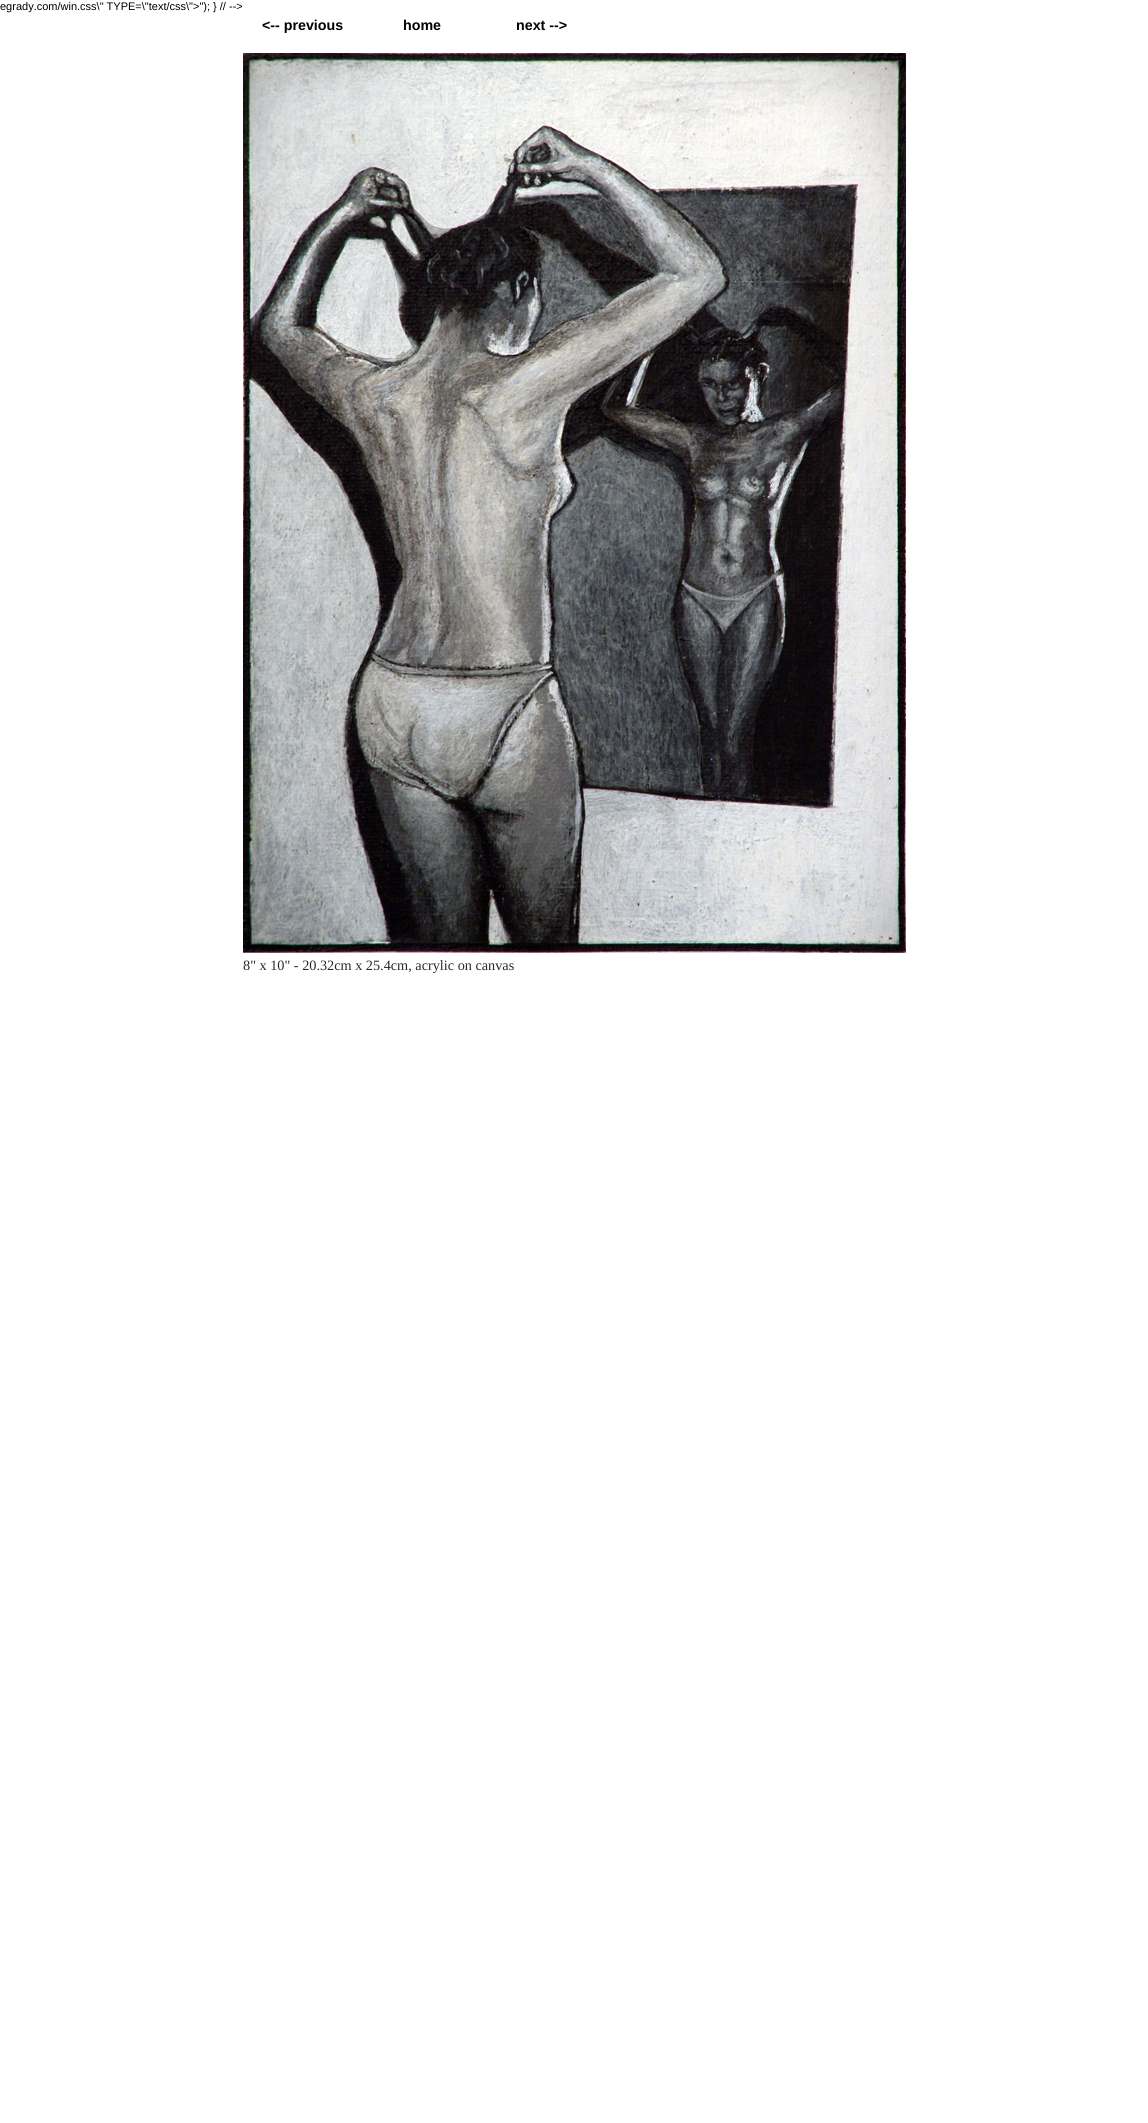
#include <cairo.h>
#include <math.h>
#include <stddef.h>

static cairo_t *ctx;

static void use_color(int r, int g, int b) {
    cairo_set_source_rgb(ctx, r / 255.0, g / 255.0, b / 255.0);
}

static void picture(const char *path, double x, double y, double w, double h) {
    cairo_surface_t *image = cairo_image_surface_create_from_png(path);
    cairo_save(ctx);
    cairo_set_source_surface(ctx, image, x, y);
    cairo_rectangle(ctx, x, y, w, h);
    cairo_fill(ctx);
    cairo_restore(ctx);
    cairo_surface_destroy(image);
}

int main(void) {
    cairo_surface_t *surface = cairo_image_surface_create(CAIRO_FORMAT_RGB24, 1148, 2123);
    ctx = cairo_create(surface);
    cairo_font_options_t *options = cairo_font_options_create();
    cairo_font_options_set_hint_metrics(options, CAIRO_HINT_METRICS_OFF);
    cairo_font_options_set_hint_style(options, CAIRO_HINT_STYLE_NONE);
    cairo_set_font_options(ctx, options);
    cairo_set_miter_limit(ctx, 4);
    use_color(255, 255, 255);
    cairo_paint(ctx);
    cairo_select_font_face(ctx, "Liberation Sans", CAIRO_FONT_SLANT_NORMAL, CAIRO_FONT_WEIGHT_NORMAL);
    cairo_set_font_size(ctx, 11);
    use_color(0, 0, 0);
    cairo_move_to(ctx, 0, 10);
    cairo_show_text(ctx, "egrady.com/win.css\\\" TYPE=\\\"text/css\\\">\"); } // -->");
    cairo_select_font_face(ctx, "Liberation Sans", CAIRO_FONT_SLANT_NORMAL, CAIRO_FONT_WEIGHT_BOLD);
    cairo_set_font_size(ctx, 14.25);
    cairo_move_to(ctx, 262, 30);
    cairo_show_text(ctx, "<-- previous");
    cairo_move_to(ctx, 403, 30);
    cairo_show_text(ctx, "home");
    cairo_move_to(ctx, 516, 30);
    cairo_show_text(ctx, "next -->");
    picture("img1.png", 243, 53, 663, 900);
    cairo_select_font_face(ctx, "Liberation Serif", CAIRO_FONT_SLANT_NORMAL, CAIRO_FONT_WEIGHT_NORMAL);
    use_color(41, 41, 41);
    cairo_move_to(ctx, 243, 970);
    cairo_show_text(ctx, "8\" x 10\" - 20.32cm x 25.4cm, acrylic on canvas");
    cairo_surface_write_to_png(surface, "result.png");
    cairo_font_options_destroy(options);
    cairo_destroy(ctx);
    cairo_surface_destroy(surface);
    return 0;
}
